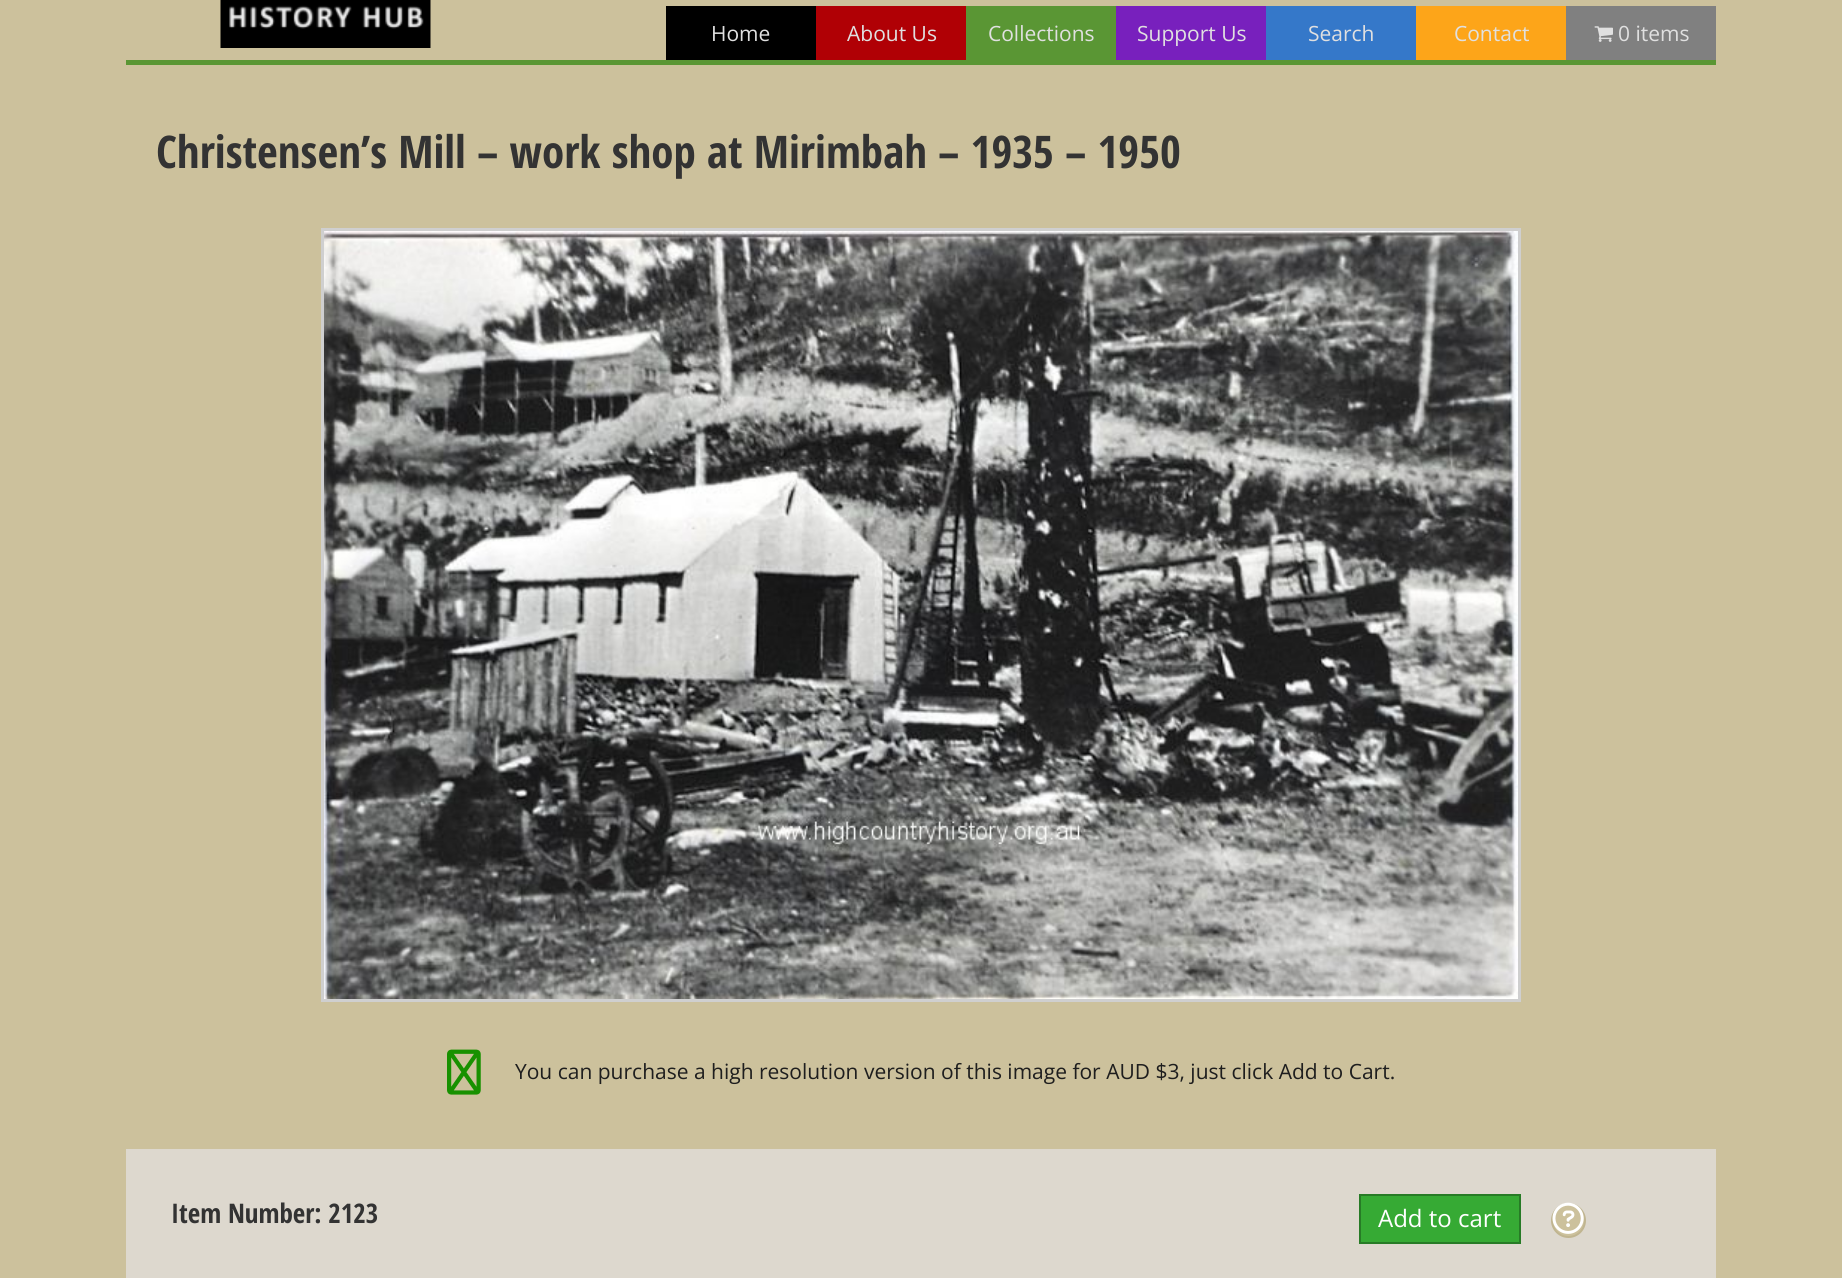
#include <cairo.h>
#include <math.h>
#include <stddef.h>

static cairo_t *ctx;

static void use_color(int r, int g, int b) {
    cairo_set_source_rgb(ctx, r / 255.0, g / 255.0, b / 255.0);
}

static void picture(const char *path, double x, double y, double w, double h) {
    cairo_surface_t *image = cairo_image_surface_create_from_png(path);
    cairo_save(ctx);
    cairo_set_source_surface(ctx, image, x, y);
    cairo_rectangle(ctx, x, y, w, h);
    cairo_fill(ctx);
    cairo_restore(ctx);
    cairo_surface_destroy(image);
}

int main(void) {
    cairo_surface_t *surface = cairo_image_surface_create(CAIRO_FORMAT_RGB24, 1842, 1278);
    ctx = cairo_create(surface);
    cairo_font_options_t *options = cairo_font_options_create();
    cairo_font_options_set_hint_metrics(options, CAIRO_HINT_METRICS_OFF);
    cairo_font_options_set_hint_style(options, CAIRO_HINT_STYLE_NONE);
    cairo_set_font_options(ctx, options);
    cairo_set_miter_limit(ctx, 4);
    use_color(204, 193, 156);
    cairo_paint(ctx);
    picture("img1.png", 220, 0, 211, 48);
    use_color(0, 0, 0);
    cairo_rectangle(ctx, 666, 6, 150, 54);
    cairo_fill(ctx);
    cairo_select_font_face(ctx, "Open Sans", CAIRO_FONT_SLANT_NORMAL, CAIRO_FONT_WEIGHT_NORMAL);
    cairo_set_font_size(ctx, 21);
    use_color(224, 224, 224);
    cairo_move_to(ctx, 711, 41);
    cairo_show_text(ctx, "Home");
    use_color(176, 0, 5);
    cairo_rectangle(ctx, 816, 6, 150, 54);
    cairo_fill(ctx);
    use_color(224, 224, 224);
    cairo_move_to(ctx, 847, 41);
    cairo_show_text(ctx, "About Us");
    use_color(90, 150, 52);
    cairo_rectangle(ctx, 966, 6, 150, 54);
    cairo_fill(ctx);
    use_color(224, 224, 224);
    cairo_move_to(ctx, 988, 41);
    cairo_show_text(ctx, "Collections");
    use_color(120, 32, 189);
    cairo_rectangle(ctx, 1116, 6, 150, 54);
    cairo_fill(ctx);
    use_color(224, 224, 224);
    cairo_move_to(ctx, 1137, 41);
    cairo_show_text(ctx, "Support Us");
    use_color(53, 120, 201);
    cairo_rectangle(ctx, 1266, 6, 150, 54);
    cairo_fill(ctx);
    use_color(224, 224, 224);
    cairo_move_to(ctx, 1308, 41);
    cairo_show_text(ctx, "Search");
    use_color(253, 165, 25);
    cairo_rectangle(ctx, 1416, 6, 150, 54);
    cairo_fill(ctx);
    use_color(224, 224, 224);
    cairo_move_to(ctx, 1454, 41);
    cairo_show_text(ctx, "Contact");
    use_color(128, 128, 128);
    cairo_rectangle(ctx, 1566, 6, 150, 54);
    cairo_fill(ctx);
    picture("img2.png", 1594, 26, 19, 16);
    use_color(224, 224, 224);
    cairo_move_to(ctx, 1618, 41);
    cairo_show_text(ctx, "0 items");
    use_color(90, 150, 52);
    cairo_rectangle(ctx, 126, 60, 1590, 5);
    cairo_fill(ctx);
    cairo_select_font_face(ctx, "Open Sans Condensed", CAIRO_FONT_SLANT_NORMAL, CAIRO_FONT_WEIGHT_BOLD);
    cairo_set_font_size(ctx, 45);
    use_color(51, 51, 51);
    cairo_move_to(ctx, 156, 168);
    cairo_show_text(ctx, "Christensen’s Mill – work shop at Mirimbah – 1935 – 1950");
    cairo_rectangle(ctx, 322.5, 229.5, 1197, 771);
    use_color(207, 207, 207);
    cairo_set_line_width(ctx, 3);
    cairo_stroke(ctx);
    picture("img3.png", 324, 231, 1194, 768);
    picture("img4.png", 447, 1049, 34, 46);
    cairo_select_font_face(ctx, "Open Sans", CAIRO_FONT_SLANT_NORMAL, CAIRO_FONT_WEIGHT_NORMAL);
    cairo_set_font_size(ctx, 21);
    use_color(30, 30, 30);
    cairo_move_to(ctx, 515, 1079);
    cairo_show_text(ctx, "You can purchase a high resolution version of this image for AUD $3, just click Add to Cart.");
    use_color(221, 216, 206);
    cairo_rectangle(ctx, 126, 1149, 1590, 129);
    cairo_fill(ctx);
    cairo_select_font_face(ctx, "Open Sans Condensed", CAIRO_FONT_SLANT_NORMAL, CAIRO_FONT_WEIGHT_BOLD);
    cairo_set_font_size(ctx, 27);
    use_color(51, 51, 51);
    cairo_move_to(ctx, 171, 1223);
    cairo_show_text(ctx, "Item Number: 2123");
    use_color(54, 170, 52);
    cairo_rectangle(ctx, 1360, 1195, 160, 48);
    cairo_fill_preserve(ctx);
    use_color(39, 123, 38);
    cairo_set_line_width(ctx, 2);
    cairo_stroke(ctx);
    cairo_select_font_face(ctx, "Open Sans", CAIRO_FONT_SLANT_NORMAL, CAIRO_FONT_WEIGHT_NORMAL);
    cairo_set_font_size(ctx, 24);
    use_color(255, 255, 255);
    cairo_move_to(ctx, 1378, 1227);
    cairo_show_text(ctx, "Add to cart");
    use_color(204, 193, 156);
    cairo_new_path(ctx);
    cairo_arc(ctx, 1568.5, 1220.5, 16.5, 0, 2 * M_PI);
    cairo_fill_preserve(ctx);
    use_color(192, 181, 144);
    cairo_stroke(ctx);
    picture("img5.png", 1552, 1202, 32, 32);
    cairo_surface_write_to_png(surface, "result.png");
    cairo_font_options_destroy(options);
    cairo_destroy(ctx);
    cairo_surface_destroy(surface);
    return 0;
}
